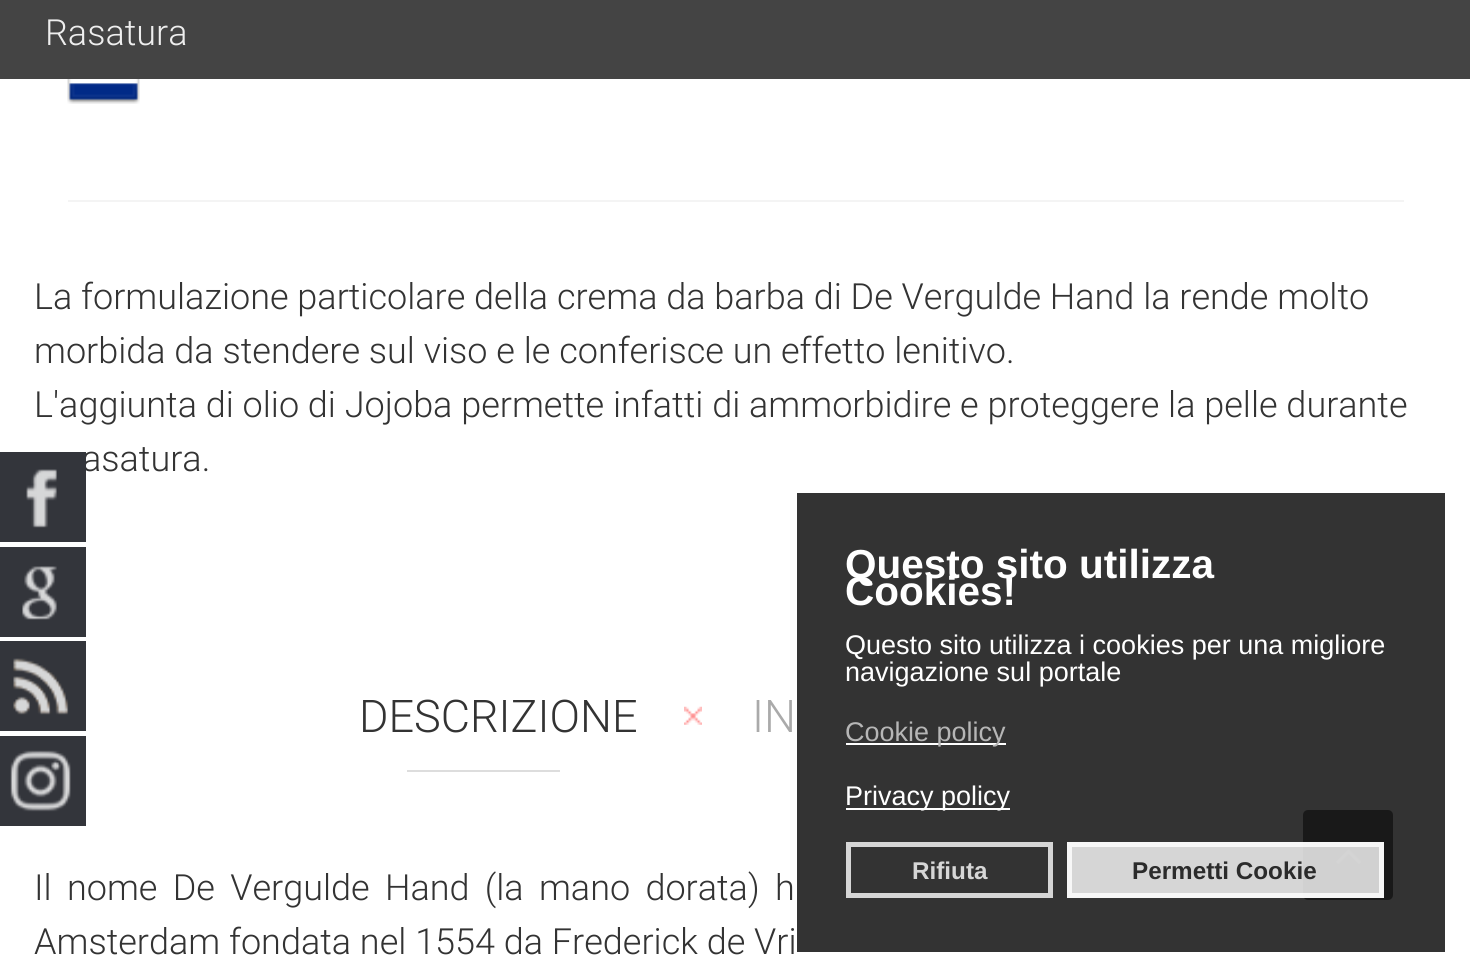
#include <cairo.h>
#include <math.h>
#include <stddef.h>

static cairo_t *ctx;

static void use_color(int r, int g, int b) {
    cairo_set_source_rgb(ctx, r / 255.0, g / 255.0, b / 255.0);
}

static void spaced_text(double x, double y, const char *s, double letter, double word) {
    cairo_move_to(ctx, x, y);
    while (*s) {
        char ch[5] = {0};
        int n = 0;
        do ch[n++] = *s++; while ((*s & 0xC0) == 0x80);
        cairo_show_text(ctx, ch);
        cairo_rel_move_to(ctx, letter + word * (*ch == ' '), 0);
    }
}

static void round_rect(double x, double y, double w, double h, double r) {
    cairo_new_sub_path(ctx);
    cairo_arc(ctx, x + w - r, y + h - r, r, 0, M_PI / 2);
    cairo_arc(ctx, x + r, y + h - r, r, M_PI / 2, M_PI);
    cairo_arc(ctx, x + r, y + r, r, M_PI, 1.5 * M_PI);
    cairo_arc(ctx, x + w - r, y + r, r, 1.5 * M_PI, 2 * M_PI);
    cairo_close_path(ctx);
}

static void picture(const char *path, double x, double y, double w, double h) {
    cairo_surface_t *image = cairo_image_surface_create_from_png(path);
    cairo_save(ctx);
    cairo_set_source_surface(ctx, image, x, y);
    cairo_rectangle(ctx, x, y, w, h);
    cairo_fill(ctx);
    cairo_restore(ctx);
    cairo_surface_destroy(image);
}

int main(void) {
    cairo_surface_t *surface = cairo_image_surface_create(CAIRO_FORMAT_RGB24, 1470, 977);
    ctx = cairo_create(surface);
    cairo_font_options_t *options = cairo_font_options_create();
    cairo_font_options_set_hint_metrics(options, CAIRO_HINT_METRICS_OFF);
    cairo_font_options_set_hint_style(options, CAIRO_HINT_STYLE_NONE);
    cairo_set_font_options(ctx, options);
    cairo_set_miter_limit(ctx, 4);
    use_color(255, 255, 255);
    cairo_paint(ctx);
    use_color(68, 68, 68);
    cairo_rectangle(ctx, 0, 0, 1470, 79);
    cairo_fill(ctx);
    cairo_select_font_face(ctx, "Roboto Light", CAIRO_FONT_SLANT_NORMAL, CAIRO_FONT_WEIGHT_NORMAL);
    cairo_set_font_size(ctx, 36);
    use_color(238, 238, 238);
    cairo_move_to(ctx, 45, 45);
    cairo_show_text(ctx, "Rasatura");
    use_color(244, 244, 244);
    cairo_rectangle(ctx, 68, 200, 1336, 2);
    cairo_fill(ctx);
    picture("img1.png", 67, 79, 73, 25);
    use_color(51, 51, 51);
    cairo_move_to(ctx, 34, 309);
    cairo_show_text(ctx, "La formulazione particolare della crema da barba di De Vergulde Hand la rende molto");
    cairo_move_to(ctx, 34, 363);
    cairo_show_text(ctx, "morbida da stendere sul viso e le conferisce un effetto lenitivo.");
    cairo_move_to(ctx, 34, 417);
    cairo_show_text(ctx, "L'aggiunta di olio di Jojoba permette infatti di ammorbidire e proteggere la pelle durante");
    cairo_move_to(ctx, 82, 471);
    cairo_show_text(ctx, "asatura.");
    cairo_set_font_size(ctx, 45);
    cairo_move_to(ctx, 359, 732);
    cairo_show_text(ctx, "DESCRIZIONE");
    use_color(221, 221, 221);
    cairo_rectangle(ctx, 407, 770, 153, 2);
    cairo_fill(ctx);
    picture("img2.png", 684, 706, 18, 19);
    use_color(170, 170, 170);
    cairo_move_to(ctx, 752, 732);
    cairo_show_text(ctx, "IN");
    cairo_set_font_size(ctx, 36);
    use_color(51, 51, 51);
    spaced_text(34, 900, "Il nome De Vergulde Hand (la mano dorata) h", 0, 6.5);
    cairo_move_to(ctx, 34, 954);
    cairo_show_text(ctx, "Amsterdam fondata nel 1554 da Frederick de Vri");
    cairo_set_source_rgba(ctx, 0, 0, 0, 0.5);
    round_rect(1303, 810, 90, 90, 5);
    cairo_fill(ctx);
    picture("img3.png", 1336, 849, 26, 15);
    use_color(51, 53, 59);
    cairo_rectangle(ctx, 0, 452, 86, 90);
    cairo_fill(ctx);
    picture("img4.png", 26, 469, 31, 59);
    cairo_rectangle(ctx, 0, 547, 86, 90);
    cairo_fill(ctx);
    picture("img5.png", 22, 566, 35, 54);
    cairo_rectangle(ctx, 0, 641, 86, 90);
    cairo_fill(ctx);
    picture("img6.png", 13, 658, 56, 57);
    cairo_rectangle(ctx, 0, 736, 86, 90);
    cairo_fill(ctx);
    picture("img7.png", 10, 750, 61, 62);
    cairo_set_source_rgba(ctx, 0, 0, 0, 0.8);
    cairo_rectangle(ctx, 797, 493, 648, 459);
    cairo_fill(ctx);
    cairo_select_font_face(ctx, "Liberation Sans", CAIRO_FONT_SLANT_NORMAL, CAIRO_FONT_WEIGHT_BOLD);
    cairo_set_font_size(ctx, 40.5);
    use_color(255, 255, 255);
    cairo_move_to(ctx, 845, 578);
    cairo_show_text(ctx, "Questo sito utilizza");
    cairo_move_to(ctx, 845, 605);
    cairo_show_text(ctx, "Cookies!");
    cairo_select_font_face(ctx, "Liberation Sans", CAIRO_FONT_SLANT_NORMAL, CAIRO_FONT_WEIGHT_NORMAL);
    cairo_set_font_size(ctx, 27);
    cairo_move_to(ctx, 845, 654);
    cairo_show_text(ctx, "Questo sito utilizza i cookies per una migliore");
    cairo_move_to(ctx, 845, 681);
    cairo_show_text(ctx, "navigazione sul portale");
    cairo_rectangle(ctx, 846, 743, 160, 2);
    cairo_fill(ctx);
    use_color(182, 182, 182);
    cairo_move_to(ctx, 845, 741);
    cairo_show_text(ctx, "Cookie policy");
    use_color(255, 255, 255);
    cairo_rectangle(ctx, 846, 808, 164, 2);
    cairo_fill(ctx);
    cairo_move_to(ctx, 845, 805);
    cairo_show_text(ctx, "Privacy policy");
    cairo_rectangle(ctx, 848.5, 844.5, 202, 51);
    cairo_set_source_rgba(ctx, 1, 1, 1, 0.8);
    cairo_set_line_width(ctx, 5);
    cairo_stroke(ctx);
    cairo_select_font_face(ctx, "Liberation Sans", CAIRO_FONT_SLANT_NORMAL, CAIRO_FONT_WEIGHT_BOLD);
    cairo_set_font_size(ctx, 24.25);
    use_color(214, 214, 214);
    cairo_move_to(ctx, 912, 879);
    cairo_show_text(ctx, "Rifiuta");
    cairo_set_source_rgba(ctx, 1, 1, 1, 0.8);
    cairo_rectangle(ctx, 1067, 842, 317, 56);
    cairo_fill(ctx);
    cairo_rectangle(ctx, 1069.5, 844.5, 312, 51);
    cairo_stroke(ctx);
    use_color(43, 43, 43);
    cairo_move_to(ctx, 1132, 879);
    cairo_show_text(ctx, "Permetti Cookie");
    cairo_surface_write_to_png(surface, "result.png");
    cairo_font_options_destroy(options);
    cairo_destroy(ctx);
    cairo_surface_destroy(surface);
    return 0;
}
